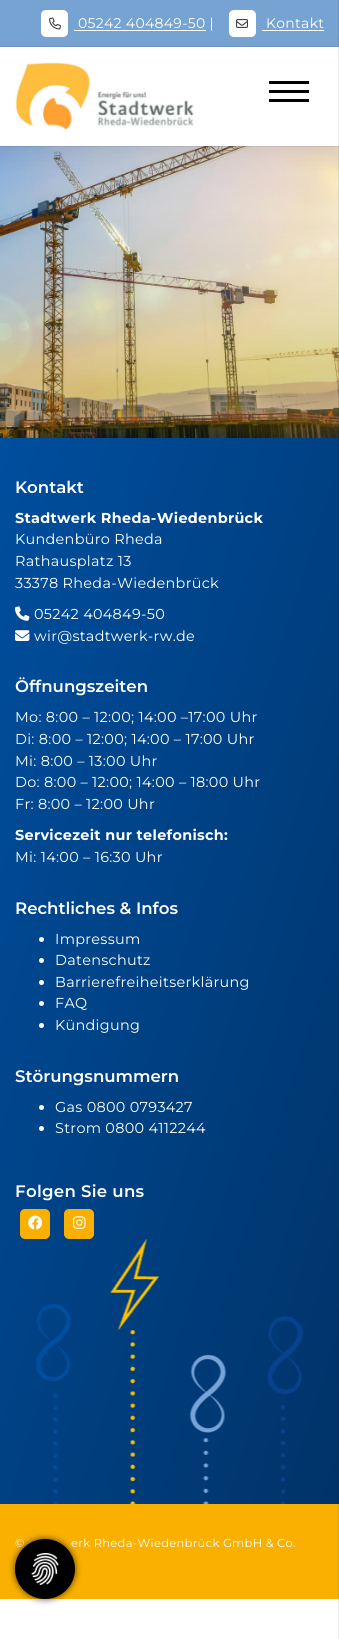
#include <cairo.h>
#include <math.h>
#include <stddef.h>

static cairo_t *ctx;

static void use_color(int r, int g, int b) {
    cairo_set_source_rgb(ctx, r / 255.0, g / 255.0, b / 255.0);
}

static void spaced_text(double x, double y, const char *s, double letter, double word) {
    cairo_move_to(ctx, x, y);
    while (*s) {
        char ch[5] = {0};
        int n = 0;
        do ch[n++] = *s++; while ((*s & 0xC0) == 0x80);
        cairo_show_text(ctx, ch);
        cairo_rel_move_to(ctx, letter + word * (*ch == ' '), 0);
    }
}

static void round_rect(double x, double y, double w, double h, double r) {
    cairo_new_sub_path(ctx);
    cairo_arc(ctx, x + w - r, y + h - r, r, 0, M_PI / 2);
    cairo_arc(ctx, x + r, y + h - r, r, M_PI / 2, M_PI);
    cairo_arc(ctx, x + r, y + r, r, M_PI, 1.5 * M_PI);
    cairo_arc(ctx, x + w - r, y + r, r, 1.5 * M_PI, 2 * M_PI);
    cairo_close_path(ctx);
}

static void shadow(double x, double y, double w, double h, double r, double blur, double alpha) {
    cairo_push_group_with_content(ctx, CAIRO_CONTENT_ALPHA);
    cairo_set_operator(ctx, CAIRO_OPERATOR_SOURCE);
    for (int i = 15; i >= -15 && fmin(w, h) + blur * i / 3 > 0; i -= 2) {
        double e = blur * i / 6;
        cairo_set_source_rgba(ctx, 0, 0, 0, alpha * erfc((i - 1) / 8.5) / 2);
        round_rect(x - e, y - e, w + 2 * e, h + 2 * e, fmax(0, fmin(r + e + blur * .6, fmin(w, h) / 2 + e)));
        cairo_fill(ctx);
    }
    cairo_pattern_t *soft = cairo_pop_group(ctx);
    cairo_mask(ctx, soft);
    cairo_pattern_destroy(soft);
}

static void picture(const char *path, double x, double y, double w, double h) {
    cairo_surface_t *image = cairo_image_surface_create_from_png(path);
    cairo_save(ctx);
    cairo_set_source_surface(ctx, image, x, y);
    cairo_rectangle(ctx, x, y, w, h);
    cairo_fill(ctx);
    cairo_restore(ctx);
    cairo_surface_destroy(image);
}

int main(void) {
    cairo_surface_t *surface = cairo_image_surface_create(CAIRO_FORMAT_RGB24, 339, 1639);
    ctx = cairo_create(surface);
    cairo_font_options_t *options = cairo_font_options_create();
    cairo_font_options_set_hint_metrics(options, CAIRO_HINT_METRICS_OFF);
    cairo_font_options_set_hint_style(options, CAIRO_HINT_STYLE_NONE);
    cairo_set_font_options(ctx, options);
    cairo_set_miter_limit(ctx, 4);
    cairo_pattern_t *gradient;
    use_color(255, 255, 255);
    cairo_paint(ctx);
    use_color(119, 163, 210);
    cairo_rectangle(ctx, 0, 0, 339, 47);
    cairo_fill(ctx);
    picture("img4.png", 0, 146, 339, 292);
    cairo_rectangle(ctx, -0.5, 46.5, 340, 100);
    cairo_set_source_rgba(ctx, 0, 0, 0, 0.08);
    cairo_set_line_width(ctx, 1);
    cairo_stroke(ctx);
    use_color(255, 255, 255);
    round_rect(41, 10, 27, 27, 5);
    cairo_fill(ctx);
    picture("img2.png", 49, 17, 12, 13);
    cairo_rectangle(ctx, 74, 30, 132, 1);
    cairo_fill(ctx);
    round_rect(229, 10, 27, 27, 5);
    cairo_fill(ctx);
    picture("img3.png", 236, 19, 12, 9);
    cairo_rectangle(ctx, 262, 30, 62, 1);
    cairo_fill(ctx);
    use_color(0, 0, 0);
    shadow(0, 53, 339, 99, 0, 12, 0.05);
    use_color(255, 255, 255);
    cairo_rectangle(ctx, 0, 47, 339, 99);
    cairo_fill(ctx);
    picture("img1.png", 15, 62, 179, 69);
    use_color(0, 0, 0);
    cairo_rectangle(ctx, 269, 90, 40, 3);
    cairo_fill(ctx);
    cairo_rectangle(ctx, 269, 81, 40, 3);
    cairo_fill(ctx);
    cairo_rectangle(ctx, 269, 99, 40, 3);
    cairo_fill(ctx);
    cairo_select_font_face(ctx, "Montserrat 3 Thin", CAIRO_FONT_SLANT_NORMAL, CAIRO_FONT_WEIGHT_NORMAL);
    cairo_set_font_size(ctx, 14);
    use_color(255, 255, 255);
    spaced_text(78, 28, "05242 404849-50 |", 0.3, 0);
    spaced_text(266, 28, "Kontakt", 0.3, 0);
    gradient = cairo_pattern_create_linear(-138, 873, 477, 1069);
    cairo_pattern_add_color_stop_rgba(gradient, 0, 0, 0.306, 0.62, 1);
    cairo_pattern_add_color_stop_rgba(gradient, 1, 0, 0.2, 0.408, 1);
    cairo_set_source(ctx, gradient);
    cairo_pattern_destroy(gradient);
    cairo_rectangle(ctx, 0, 438, 339, 1066);
    cairo_fill(ctx);
    use_color(249, 176, 0);
    cairo_rectangle(ctx, 0, 1504, 339, 95);
    cairo_fill(ctx);
    cairo_rectangle(ctx, 338.5, -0.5, 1, 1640);
    cairo_set_source_rgba(ctx, 0, 0, 0, 0.08);
    cairo_stroke(ctx);
    picture("img5.png", 35, 1239, 269, 265);
    cairo_select_font_face(ctx, "Montserrat Thin", CAIRO_FONT_SLANT_NORMAL, CAIRO_FONT_WEIGHT_NORMAL);
    cairo_set_font_size(ctx, 16.6);
    use_color(255, 255, 255);
    cairo_move_to(ctx, 15, 493);
    cairo_show_text(ctx, "Kontakt");
    cairo_select_font_face(ctx, "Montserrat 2 Thin", CAIRO_FONT_SLANT_NORMAL, CAIRO_FONT_WEIGHT_NORMAL);
    cairo_set_font_size(ctx, 14.4);
    spaced_text(15, 523, "Stadtwerk Rheda-Wiedenbrück", 0.3, 0);
    cairo_select_font_face(ctx, "Montserrat 3 Thin", CAIRO_FONT_SLANT_NORMAL, CAIRO_FONT_WEIGHT_NORMAL);
    spaced_text(15, 544, "Kundenbüro Rheda", 0.3, 0);
    spaced_text(15, 566, "Rathausplatz 13", 0.3, 0);
    spaced_text(15, 588, "33378 Rheda-Wiedenbrück", 0.3, 0);
    picture("img6.png", 15, 606, 15, 15);
    spaced_text(34, 619, "05242 404849-50", 0.3, 0);
    picture("img7.png", 15, 630, 15, 11);
    spaced_text(34, 641, "wir@stadtwerk-rw.de", 0.3, 0);
    cairo_select_font_face(ctx, "Montserrat Thin", CAIRO_FONT_SLANT_NORMAL, CAIRO_FONT_WEIGHT_NORMAL);
    cairo_set_font_size(ctx, 16.6);
    cairo_move_to(ctx, 15, 692);
    cairo_show_text(ctx, "Öffnungszeiten");
    cairo_select_font_face(ctx, "Montserrat 3 Thin", CAIRO_FONT_SLANT_NORMAL, CAIRO_FONT_WEIGHT_NORMAL);
    cairo_set_font_size(ctx, 14.4);
    spaced_text(15, 722, "Mo: 8:00 – 12:00; 14:00 –17:00 Uhr", 0.3, 0);
    spaced_text(15, 744, "Di: 8:00 – 12:00; 14:00 – 17:00 Uhr", 0.3, 0);
    spaced_text(15, 766, "Mi: 8:00 – 13:00 Uhr", 0.3, 0);
    spaced_text(15, 787, "Do: 8:00 – 12:00; 14:00 – 18:00 Uhr", 0.3, 0);
    spaced_text(15, 809, "Fr: 8:00 – 12:00 Uhr", 0.3, 0);
    cairo_select_font_face(ctx, "Montserrat 2 Thin", CAIRO_FONT_SLANT_NORMAL, CAIRO_FONT_WEIGHT_NORMAL);
    spaced_text(15, 840, "Servicezeit nur telefonisch:", 0.3, 0);
    cairo_select_font_face(ctx, "Montserrat 3 Thin", CAIRO_FONT_SLANT_NORMAL, CAIRO_FONT_WEIGHT_NORMAL);
    spaced_text(15, 862, "Mi: 14:00 – 16:30 Uhr", 0.3, 0);
    cairo_select_font_face(ctx, "Montserrat Thin", CAIRO_FONT_SLANT_NORMAL, CAIRO_FONT_WEIGHT_NORMAL);
    cairo_set_font_size(ctx, 16.6);
    cairo_move_to(ctx, 15, 914);
    cairo_show_text(ctx, "Rechtliches & Infos");
    cairo_new_path(ctx);
    cairo_arc(ctx, 41.5, 939.5, 2.5, 0, 2 * M_PI);
    cairo_fill(ctx);
    cairo_select_font_face(ctx, "Montserrat 3 Thin", CAIRO_FONT_SLANT_NORMAL, CAIRO_FONT_WEIGHT_NORMAL);
    cairo_set_font_size(ctx, 14.4);
    spaced_text(55, 944, "Impressum", 0.3, 0);
    cairo_new_path(ctx);
    cairo_arc(ctx, 41.5, 960.5, 2.5, 0, 2 * M_PI);
    cairo_fill(ctx);
    spaced_text(55, 965, "Datenschutz", 0.3, 0);
    cairo_new_path(ctx);
    cairo_arc(ctx, 41.5, 982.5, 2.5, 0, 2 * M_PI);
    cairo_fill(ctx);
    spaced_text(55, 987, "Barrierefreiheitserklärung", 0.3, 0);
    cairo_new_path(ctx);
    cairo_arc(ctx, 41.5, 1003.5, 2.5, 0, 2 * M_PI);
    cairo_fill(ctx);
    spaced_text(55, 1008, "FAQ", 0.3, 0);
    cairo_new_path(ctx);
    cairo_arc(ctx, 41.5, 1025.5, 2.5, 0, 2 * M_PI);
    cairo_fill(ctx);
    spaced_text(55, 1030, "Kündigung", 0.3, 0);
    cairo_select_font_face(ctx, "Montserrat Thin", CAIRO_FONT_SLANT_NORMAL, CAIRO_FONT_WEIGHT_NORMAL);
    cairo_set_font_size(ctx, 16.6);
    cairo_move_to(ctx, 15, 1082);
    cairo_show_text(ctx, "Störungsnummern");
    cairo_new_path(ctx);
    cairo_arc(ctx, 41.5, 1107.5, 2.5, 0, 2 * M_PI);
    cairo_fill(ctx);
    cairo_select_font_face(ctx, "Montserrat 3 Thin", CAIRO_FONT_SLANT_NORMAL, CAIRO_FONT_WEIGHT_NORMAL);
    cairo_set_font_size(ctx, 14.4);
    spaced_text(55, 1112, "Gas 0800 0793427", 0.3, 0);
    cairo_new_path(ctx);
    cairo_arc(ctx, 41.5, 1128.5, 2.5, 0, 2 * M_PI);
    cairo_fill(ctx);
    spaced_text(55, 1133, "Strom 0800 4112244", 0.3, 0);
    cairo_select_font_face(ctx, "Montserrat Thin", CAIRO_FONT_SLANT_NORMAL, CAIRO_FONT_WEIGHT_NORMAL);
    cairo_set_font_size(ctx, 16.6);
    spaced_text(15, 1197, "Folgen Sie uns", 0.3, 0);
    use_color(249, 176, 0);
    round_rect(20, 1209, 30, 30, 5);
    cairo_fill(ctx);
    picture("img8.png", 28, 1215, 15, 15);
    round_rect(64, 1209, 30, 30, 5);
    cairo_fill(ctx);
    picture("img9.png", 73, 1216, 13, 13);
    cairo_select_font_face(ctx, "Montserrat 3 Thin", CAIRO_FONT_SLANT_NORMAL, CAIRO_FONT_WEIGHT_NORMAL);
    cairo_set_font_size(ctx, 11.5);
    use_color(255, 255, 255);
    spaced_text(15, 1547, "©", 0.3, 0);
    spaced_text(71, 1547, "erk Rheda-Wiedenbrück GmbH & Co.", 0.3, 0);
    use_color(0, 0, 0);
    shadow(14, 1538, 62, 62, 31, 3, 0.5);
    use_color(0, 0, 0);
    cairo_arc(ctx, 45, 1569, 30, 0, 2 * M_PI);
    cairo_fill(ctx);
    picture("img10.png", 31, 1553, 28, 32);
    cairo_surface_write_to_png(surface, "result.png");
    cairo_font_options_destroy(options);
    cairo_destroy(ctx);
    cairo_surface_destroy(surface);
    return 0;
}
